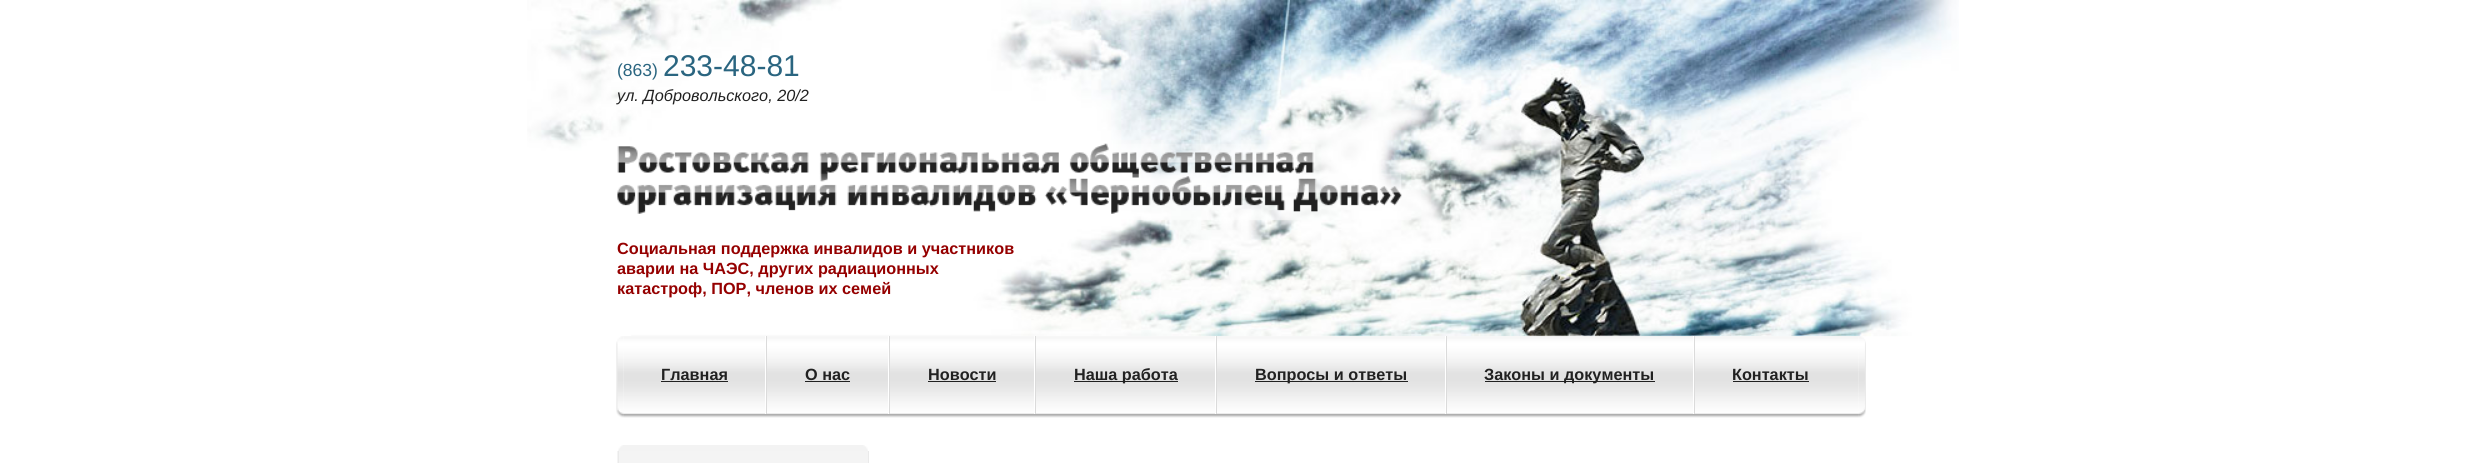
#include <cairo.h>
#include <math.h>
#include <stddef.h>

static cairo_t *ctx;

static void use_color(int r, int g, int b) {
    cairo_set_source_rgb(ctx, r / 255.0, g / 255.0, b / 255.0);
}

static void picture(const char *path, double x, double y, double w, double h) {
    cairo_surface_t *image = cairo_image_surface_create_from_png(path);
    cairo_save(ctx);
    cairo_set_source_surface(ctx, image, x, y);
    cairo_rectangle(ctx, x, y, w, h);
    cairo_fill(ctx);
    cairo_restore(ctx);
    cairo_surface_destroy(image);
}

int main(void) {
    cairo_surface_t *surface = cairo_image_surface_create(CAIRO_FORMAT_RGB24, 2481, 463);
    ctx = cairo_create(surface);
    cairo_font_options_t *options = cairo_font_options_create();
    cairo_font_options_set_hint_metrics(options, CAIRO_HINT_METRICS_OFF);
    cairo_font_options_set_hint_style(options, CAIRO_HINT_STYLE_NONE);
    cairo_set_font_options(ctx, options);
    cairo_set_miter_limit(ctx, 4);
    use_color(255, 255, 255);
    cairo_paint(ctx);
    picture("img1.png", 527, 0, 1432, 337);
    cairo_select_font_face(ctx, "Liberation Sans", CAIRO_FONT_SLANT_NORMAL, CAIRO_FONT_WEIGHT_NORMAL);
    cairo_set_font_size(ctx, 17.5);
    use_color(42, 101, 128);
    cairo_move_to(ctx, 617, 76);
    cairo_show_text(ctx, "(863)");
    cairo_set_font_size(ctx, 30);
    cairo_move_to(ctx, 663, 76);
    cairo_show_text(ctx, "233-48-81");
    cairo_select_font_face(ctx, "Liberation Sans", CAIRO_FONT_SLANT_ITALIC, CAIRO_FONT_WEIGHT_NORMAL);
    cairo_set_font_size(ctx, 16.25);
    use_color(33, 33, 33);
    cairo_move_to(ctx, 617, 101);
    cairo_show_text(ctx, "ул. Добровольского, 20/2");
    picture("img2.png", 617, 143, 785, 71);
    cairo_select_font_face(ctx, "Liberation Sans", CAIRO_FONT_SLANT_NORMAL, CAIRO_FONT_WEIGHT_BOLD);
    use_color(149, 0, 0);
    cairo_move_to(ctx, 617, 254);
    cairo_show_text(ctx, "Социальная поддержка инвалидов и участников");
    cairo_move_to(ctx, 617, 274);
    cairo_show_text(ctx, "аварии на ЧАЭС, других радиационных");
    cairo_move_to(ctx, 617, 294);
    cairo_show_text(ctx, "катастроф, ПОР, членов их семей");
    picture("img3.png", 623, 336, 1236, 82);
    picture("img4.png", 616, 336, 8, 82);
    use_color(255, 255, 255);
    cairo_rectangle(ctx, 765, 336, 1, 78);
    cairo_fill(ctx);
    use_color(33, 33, 33);
    cairo_move_to(ctx, 661, 380);
    cairo_show_text(ctx, "Главная");
    cairo_rectangle(ctx, 661, 381, 67, 1);
    cairo_fill(ctx);
    use_color(255, 255, 255);
    cairo_rectangle(ctx, 888, 336, 1, 78);
    cairo_fill(ctx);
    use_color(219, 219, 219);
    cairo_rectangle(ctx, 766, 336, 1, 78);
    cairo_fill(ctx);
    use_color(33, 33, 33);
    cairo_move_to(ctx, 805, 380);
    cairo_show_text(ctx, "О нас");
    cairo_rectangle(ctx, 805, 381, 45, 1);
    cairo_fill(ctx);
    use_color(255, 255, 255);
    cairo_rectangle(ctx, 1034, 336, 1, 78);
    cairo_fill(ctx);
    use_color(219, 219, 219);
    cairo_rectangle(ctx, 889, 336, 1, 78);
    cairo_fill(ctx);
    use_color(33, 33, 33);
    cairo_move_to(ctx, 928, 380);
    cairo_show_text(ctx, "Новости");
    cairo_rectangle(ctx, 928, 381, 68, 1);
    cairo_fill(ctx);
    use_color(255, 255, 255);
    cairo_rectangle(ctx, 1215, 336, 1, 78);
    cairo_fill(ctx);
    use_color(219, 219, 219);
    cairo_rectangle(ctx, 1035, 336, 1, 78);
    cairo_fill(ctx);
    use_color(33, 33, 33);
    cairo_rectangle(ctx, 1074, 381, 104, 1);
    cairo_fill(ctx);
    cairo_move_to(ctx, 1074, 380);
    cairo_show_text(ctx, "Наша работа");
    use_color(255, 255, 255);
    cairo_rectangle(ctx, 1445, 336, 1, 78);
    cairo_fill(ctx);
    use_color(219, 219, 219);
    cairo_rectangle(ctx, 1216, 336, 1, 78);
    cairo_fill(ctx);
    use_color(33, 33, 33);
    cairo_rectangle(ctx, 1255, 381, 153, 1);
    cairo_fill(ctx);
    cairo_move_to(ctx, 1255, 380);
    cairo_show_text(ctx, "Вопросы и ответы");
    use_color(255, 255, 255);
    cairo_rectangle(ctx, 1693, 336, 1, 78);
    cairo_fill(ctx);
    use_color(219, 219, 219);
    cairo_rectangle(ctx, 1446, 336, 1, 78);
    cairo_fill(ctx);
    use_color(33, 33, 33);
    cairo_rectangle(ctx, 1485, 381, 170, 1);
    cairo_fill(ctx);
    cairo_move_to(ctx, 1484, 380);
    cairo_show_text(ctx, "Законы и документы");
    use_color(219, 219, 219);
    cairo_rectangle(ctx, 1694, 336, 1, 78);
    cairo_fill(ctx);
    use_color(33, 33, 33);
    cairo_move_to(ctx, 1732, 380);
    cairo_show_text(ctx, "Контакты");
    cairo_rectangle(ctx, 1733, 381, 76, 1);
    cairo_fill(ctx);
    picture("img5.png", 1858, 336, 8, 82);
    use_color(244, 244, 244);
    cairo_rectangle(ctx, 617, 451, 251, 12);
    cairo_fill(ctx);
    use_color(234, 234, 234);
    cairo_rectangle(ctx, 868, 451, 1, 12);
    cairo_fill(ctx);
    cairo_rectangle(ctx, 618, 451, 1, 12);
    cairo_fill(ctx);
    picture("img6.png", 618, 445, 250, 6);
    cairo_surface_write_to_png(surface, "result.png");
    cairo_font_options_destroy(options);
    cairo_destroy(ctx);
    cairo_surface_destroy(surface);
    return 0;
}
